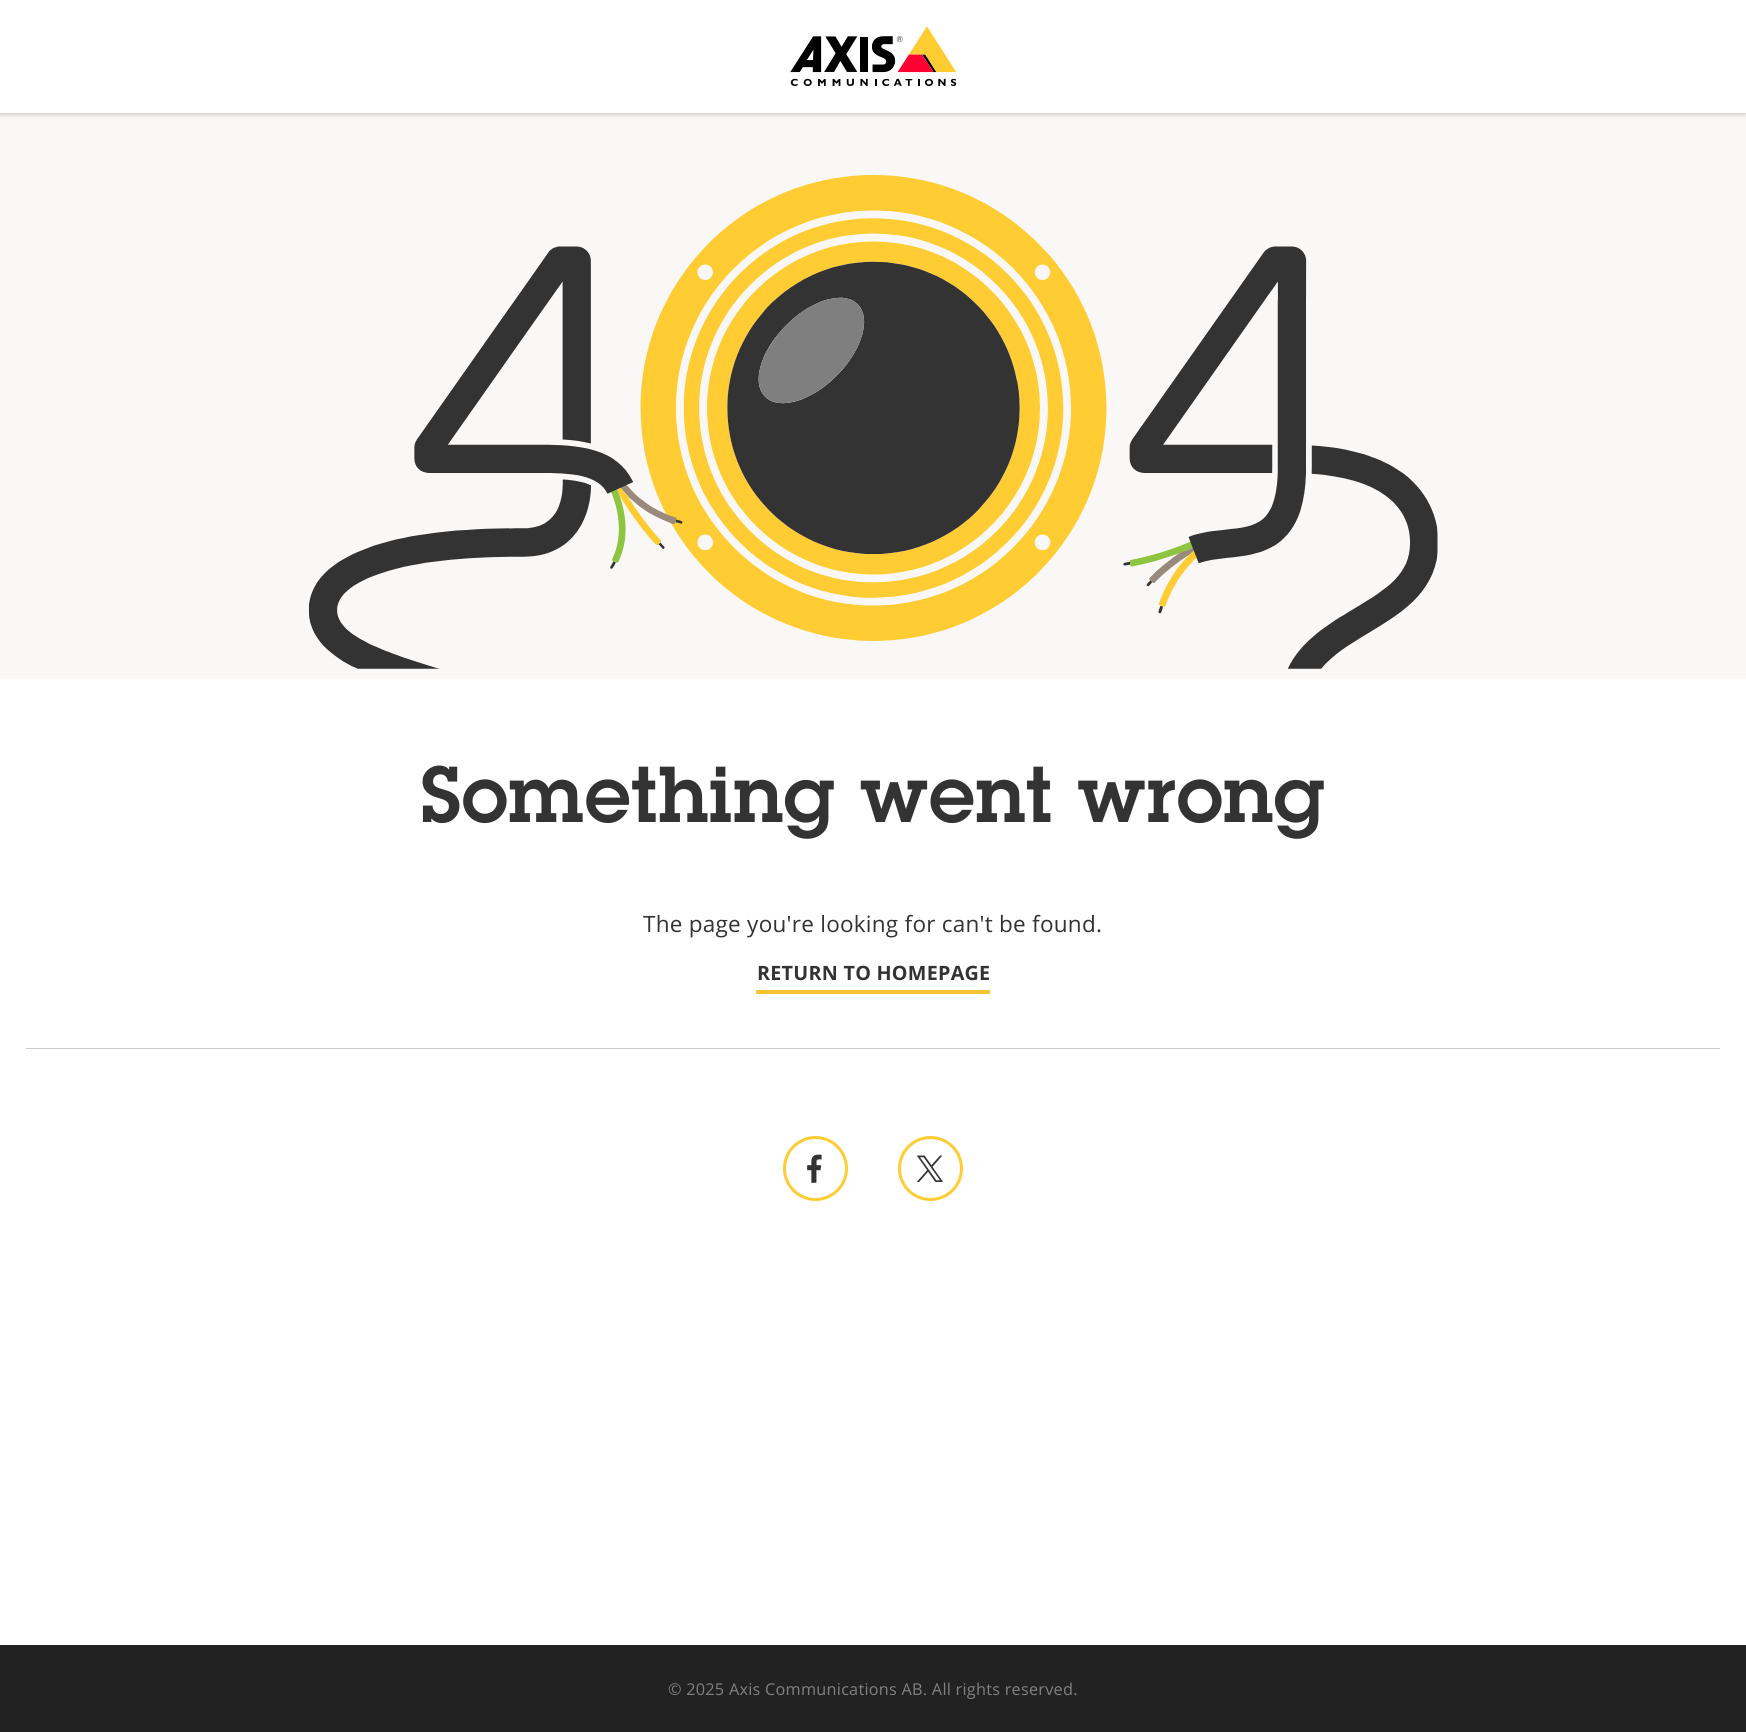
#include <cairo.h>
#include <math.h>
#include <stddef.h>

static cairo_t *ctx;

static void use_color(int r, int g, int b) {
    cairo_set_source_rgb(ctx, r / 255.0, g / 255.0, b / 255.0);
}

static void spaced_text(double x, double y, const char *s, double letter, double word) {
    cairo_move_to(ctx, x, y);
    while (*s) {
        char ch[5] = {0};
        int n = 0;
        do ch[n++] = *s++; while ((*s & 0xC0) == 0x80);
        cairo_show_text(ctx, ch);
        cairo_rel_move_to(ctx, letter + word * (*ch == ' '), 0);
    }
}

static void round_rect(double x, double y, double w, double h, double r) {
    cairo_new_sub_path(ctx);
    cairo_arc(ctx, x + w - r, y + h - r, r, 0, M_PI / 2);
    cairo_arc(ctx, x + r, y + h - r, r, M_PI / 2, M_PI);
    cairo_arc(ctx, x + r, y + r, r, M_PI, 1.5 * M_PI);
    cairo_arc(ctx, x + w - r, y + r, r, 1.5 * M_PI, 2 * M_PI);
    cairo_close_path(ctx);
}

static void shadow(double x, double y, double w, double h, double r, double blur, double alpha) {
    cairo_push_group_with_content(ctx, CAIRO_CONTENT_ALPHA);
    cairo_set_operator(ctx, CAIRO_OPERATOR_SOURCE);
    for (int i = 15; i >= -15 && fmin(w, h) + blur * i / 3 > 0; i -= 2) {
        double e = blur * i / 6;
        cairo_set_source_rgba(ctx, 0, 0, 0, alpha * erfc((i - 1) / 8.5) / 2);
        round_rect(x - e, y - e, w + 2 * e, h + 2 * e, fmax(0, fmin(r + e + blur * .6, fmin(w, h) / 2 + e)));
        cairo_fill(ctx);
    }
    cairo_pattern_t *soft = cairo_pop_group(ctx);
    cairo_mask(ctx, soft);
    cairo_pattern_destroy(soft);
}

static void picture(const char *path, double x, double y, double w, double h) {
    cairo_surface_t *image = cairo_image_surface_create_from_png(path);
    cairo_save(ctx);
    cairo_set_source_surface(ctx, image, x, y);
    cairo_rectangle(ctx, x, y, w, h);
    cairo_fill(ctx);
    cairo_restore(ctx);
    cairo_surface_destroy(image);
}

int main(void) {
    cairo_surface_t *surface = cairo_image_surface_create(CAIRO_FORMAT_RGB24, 1746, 1732);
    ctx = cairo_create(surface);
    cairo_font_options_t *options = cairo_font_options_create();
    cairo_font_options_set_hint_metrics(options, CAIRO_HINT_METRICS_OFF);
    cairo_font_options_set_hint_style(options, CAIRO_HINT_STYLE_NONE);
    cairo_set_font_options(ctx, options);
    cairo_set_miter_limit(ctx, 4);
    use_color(255, 255, 255);
    cairo_paint(ctx);
    use_color(250, 248, 246);
    cairo_rectangle(ctx, 0, 113, 1746, 566);
    cairo_fill(ctx);
    cairo_save(ctx);
    cairo_set_fill_rule(ctx, CAIRO_FILL_RULE_EVEN_ODD);
    cairo_new_path(ctx);
    cairo_move_to(ctx, 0, 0);
    cairo_line_to(ctx, 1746, 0);
    cairo_line_to(ctx, 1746, 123);
    cairo_line_to(ctx, 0, 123);
    cairo_close_path(ctx);
    cairo_move_to(ctx, 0, 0);
    cairo_line_to(ctx, 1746, 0);
    cairo_line_to(ctx, 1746, 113);
    cairo_line_to(ctx, 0, 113);
    cairo_close_path(ctx);
    cairo_clip(ctx);
    use_color(0, 0, 0);
    shadow(0, 0, 1746, 113, 0, 3, 0.3);
    cairo_restore(ctx);
    picture("img1.png", 790, 26, 166, 60);
    picture("img2.png", 308, 175, 1130, 494);
    cairo_select_font_face(ctx, "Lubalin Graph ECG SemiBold", CAIRO_FONT_SLANT_NORMAL, CAIRO_FONT_WEIGHT_NORMAL);
    cairo_set_font_size(ctx, 77.5);
    use_color(51, 51, 51);
    spaced_text(421, 822, "Something went wrong", 1, 0);
    cairo_select_font_face(ctx, "Open Sans", CAIRO_FONT_SLANT_NORMAL, CAIRO_FONT_WEIGHT_NORMAL);
    cairo_set_font_size(ctx, 22.5);
    spaced_text(643, 932, "The page you're looking for can't be found.", 0.25, 0);
    cairo_select_font_face(ctx, "Open Sans", CAIRO_FONT_SLANT_NORMAL, CAIRO_FONT_WEIGHT_BOLD);
    cairo_set_font_size(ctx, 19.75);
    spaced_text(757, 980, "RETURN TO HOMEPAGE", 0.25, 0);
    use_color(245, 196, 48);
    cairo_rectangle(ctx, 756, 990, 234, 4);
    cairo_fill(ctx);
    use_color(204, 204, 204);
    cairo_rectangle(ctx, 26, 1048, 1694, 1);
    cairo_fill(ctx);
    picture("img3.png", 807, 1154, 15, 29);
    cairo_arc(ctx, 815.5, 1168.5, 31, 0, 2 * M_PI);
    use_color(255, 204, 51);
    cairo_set_line_width(ctx, 3);
    cairo_stroke(ctx);
    picture("img4.png", 916, 1155, 27, 27);
    cairo_arc(ctx, 930.5, 1168.5, 31, 0, 2 * M_PI);
    cairo_stroke(ctx);
    use_color(34, 34, 34);
    cairo_rectangle(ctx, 0, 1645, 1746, 87);
    cairo_fill(ctx);
    cairo_select_font_face(ctx, "Open Sans", CAIRO_FONT_SLANT_NORMAL, CAIRO_FONT_WEIGHT_NORMAL);
    cairo_set_font_size(ctx, 16.25);
    use_color(128, 128, 128);
    spaced_text(668, 1695, "© 2025 Axis Communications AB. All rights reserved.", 0.25, 0);
    cairo_surface_write_to_png(surface, "result.png");
    cairo_font_options_destroy(options);
    cairo_destroy(ctx);
    cairo_surface_destroy(surface);
    return 0;
}
